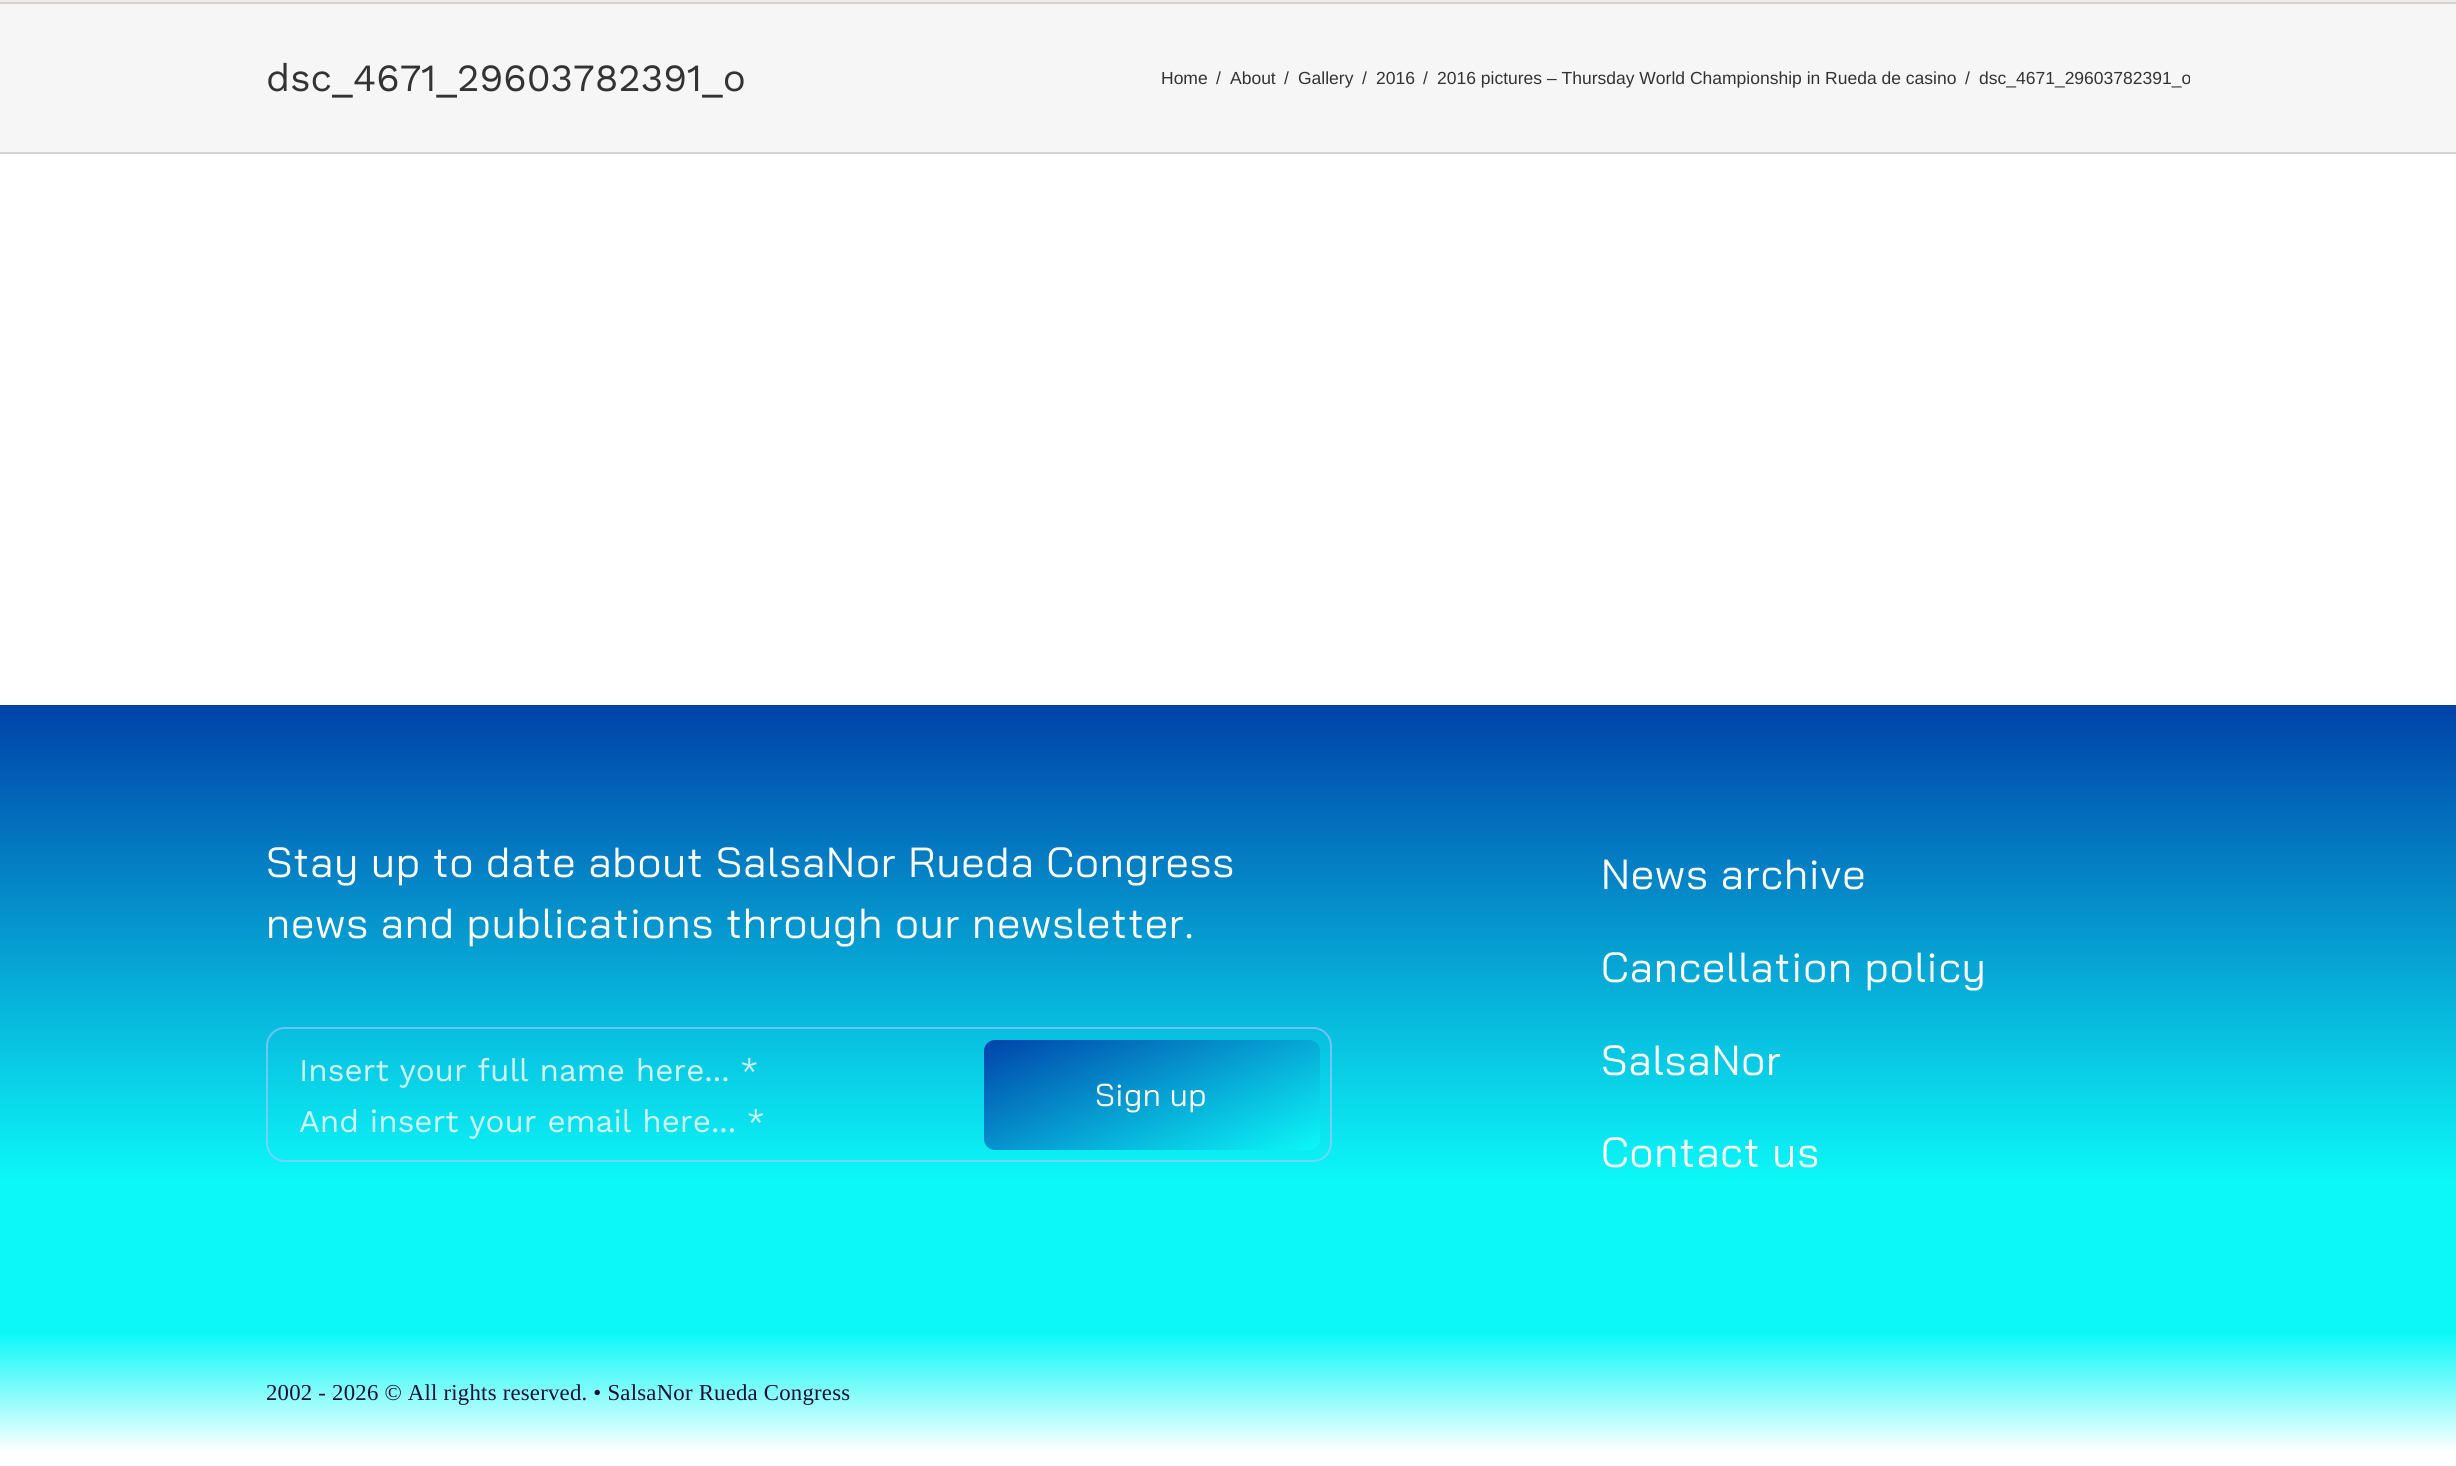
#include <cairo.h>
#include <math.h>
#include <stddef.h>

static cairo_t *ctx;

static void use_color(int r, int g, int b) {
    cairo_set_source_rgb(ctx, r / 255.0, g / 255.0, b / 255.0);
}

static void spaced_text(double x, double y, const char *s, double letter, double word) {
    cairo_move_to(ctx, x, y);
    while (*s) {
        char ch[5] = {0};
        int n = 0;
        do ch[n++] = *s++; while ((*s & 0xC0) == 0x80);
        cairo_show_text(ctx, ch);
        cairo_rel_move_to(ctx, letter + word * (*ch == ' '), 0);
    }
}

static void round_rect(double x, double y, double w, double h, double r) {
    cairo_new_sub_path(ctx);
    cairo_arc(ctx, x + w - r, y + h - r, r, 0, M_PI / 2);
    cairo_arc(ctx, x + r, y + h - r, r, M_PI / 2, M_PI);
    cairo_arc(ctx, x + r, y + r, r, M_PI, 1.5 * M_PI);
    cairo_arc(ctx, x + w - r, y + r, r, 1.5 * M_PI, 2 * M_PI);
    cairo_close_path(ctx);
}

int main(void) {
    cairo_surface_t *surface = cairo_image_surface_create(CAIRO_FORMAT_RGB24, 2456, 1466);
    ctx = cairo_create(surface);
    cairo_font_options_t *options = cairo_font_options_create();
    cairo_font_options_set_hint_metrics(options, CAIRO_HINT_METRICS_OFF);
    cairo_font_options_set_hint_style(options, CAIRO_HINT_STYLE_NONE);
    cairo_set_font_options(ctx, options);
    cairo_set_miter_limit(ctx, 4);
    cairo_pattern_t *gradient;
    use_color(255, 255, 255);
    cairo_paint(ctx);
    use_color(241, 235, 230);
    cairo_rectangle(ctx, 0, 0, 2456, 2);
    cairo_fill(ctx);
    use_color(246, 246, 246);
    cairo_rectangle(ctx, 0, 4, 2456, 148);
    cairo_fill(ctx);
    use_color(210, 211, 212);
    cairo_rectangle(ctx, 0, 2, 2456, 2);
    cairo_fill(ctx);
    cairo_rectangle(ctx, 0, 152, 2456, 2);
    cairo_fill(ctx);
    cairo_select_font_face(ctx, "Work Sans", CAIRO_FONT_SLANT_NORMAL, CAIRO_FONT_WEIGHT_NORMAL);
    cairo_set_font_size(ctx, 38.5);
    use_color(51, 51, 51);
    cairo_move_to(ctx, 266, 91);
    cairo_show_text(ctx, "dsc_4671_29603782391_o");
    cairo_select_font_face(ctx, "Liberation Sans", CAIRO_FONT_SLANT_NORMAL, CAIRO_FONT_WEIGHT_NORMAL);
    cairo_set_font_size(ctx, 17.5);
    cairo_move_to(ctx, 1161, 84);
    cairo_show_text(ctx, "Home");
    cairo_move_to(ctx, 1216, 84);
    cairo_show_text(ctx, "/");
    cairo_move_to(ctx, 1230, 84);
    cairo_show_text(ctx, "About");
    cairo_move_to(ctx, 1284, 84);
    cairo_show_text(ctx, "/");
    cairo_move_to(ctx, 1298, 84);
    cairo_show_text(ctx, "Gallery");
    cairo_move_to(ctx, 1362, 84);
    cairo_show_text(ctx, "/");
    cairo_move_to(ctx, 1376, 84);
    cairo_show_text(ctx, "2016");
    cairo_move_to(ctx, 1423, 84);
    cairo_show_text(ctx, "/");
    cairo_move_to(ctx, 1437, 84);
    cairo_show_text(ctx, "2016 pictures – Thursday World Championship in Rueda de casino");
    cairo_move_to(ctx, 1965, 84);
    cairo_show_text(ctx, "/");
    cairo_move_to(ctx, 1979, 84);
    cairo_show_text(ctx, "dsc_4671_29603782391_o");
    gradient = cairo_pattern_create_linear(1229, 1334, 1229, 705);
    cairo_pattern_add_color_stop_rgba(gradient, 0.24, 0.047, 0.973, 0.973, 1);
    cairo_pattern_add_color_stop_rgba(gradient, 1, 0, 0.259, 0.663, 1);
    cairo_set_source(ctx, gradient);
    cairo_pattern_destroy(gradient);
    cairo_rectangle(ctx, 0, 705, 2456, 629);
    cairo_fill(ctx);
    cairo_select_font_face(ctx, "Bai Jamjuree", CAIRO_FONT_SLANT_NORMAL, CAIRO_FONT_WEIGHT_NORMAL);
    cairo_set_font_size(ctx, 42);
    use_color(255, 255, 255);
    spaced_text(266, 877, "Stay up to date about SalsaNor Rueda Congress", 0.85, 0);
    spaced_text(266, 938, "news and publications through our newsletter.", 0.85, 0);
    round_rect(267, 1028, 1064, 133, 18);
    cairo_set_source_rgba(ctx, 0.702, 0.769, 1, 0.6);
    cairo_stroke(ctx);
    cairo_select_font_face(ctx, "Work Sans", CAIRO_FONT_SLANT_NORMAL, CAIRO_FONT_WEIGHT_NORMAL);
    cairo_set_font_size(ctx, 31.5);
    use_color(206, 245, 250);
    cairo_move_to(ctx, 299, 1081);
    cairo_show_text(ctx, "Insert your full name here... *");
    cairo_move_to(ctx, 299, 1132);
    cairo_show_text(ctx, "And insert your email here... *");
    gradient = cairo_pattern_create_linear(1106, 987, 1197, 1202);
    cairo_pattern_add_color_stop_rgba(gradient, 0, 0, 0.259, 0.663, 1);
    cairo_pattern_add_color_stop_rgba(gradient, 1, 0.047, 0.973, 0.973, 1);
    cairo_set_source(ctx, gradient);
    cairo_pattern_destroy(gradient);
    round_rect(984, 1040, 336, 110, 11);
    cairo_fill(ctx);
    cairo_select_font_face(ctx, "Bai Jamjuree", CAIRO_FONT_SLANT_NORMAL, CAIRO_FONT_WEIGHT_NORMAL);
    use_color(255, 255, 255);
    spaced_text(1095, 1106, "Sign up", 0.5, 0);
    cairo_set_font_size(ctx, 42);
    spaced_text(1601, 889, "News archive", 0.85, 0);
    spaced_text(1601, 982, "Cancellation policy", 0.85, 0);
    spaced_text(1601, 1075, "SalsaNor", 0.85, 0);
    spaced_text(1601, 1167, "Contact us", 0.85, 0);
    gradient = cairo_pattern_create_linear(1229, 1333, 1229, 1453);
    cairo_pattern_add_color_stop_rgba(gradient, 0, 0.047, 0.973, 0.973, 1);
    cairo_pattern_add_color_stop_rgba(gradient, 1, 1, 1, 1, 1);
    cairo_set_source(ctx, gradient);
    cairo_pattern_destroy(gradient);
    cairo_rectangle(ctx, 0, 1334, 2456, 118);
    cairo_fill(ctx);
    cairo_select_font_face(ctx, "Liberation Serif", CAIRO_FONT_SLANT_NORMAL, CAIRO_FONT_WEIGHT_NORMAL);
    cairo_set_font_size(ctx, 22.75);
    use_color(17, 17, 49);
    spaced_text(266, 1400, "2002 - 2026 © All rights reserved. • SalsaNor Rueda Congress", 0.23, 0);
    cairo_surface_write_to_png(surface, "result.png");
    cairo_font_options_destroy(options);
    cairo_destroy(ctx);
    cairo_surface_destroy(surface);
    return 0;
}
